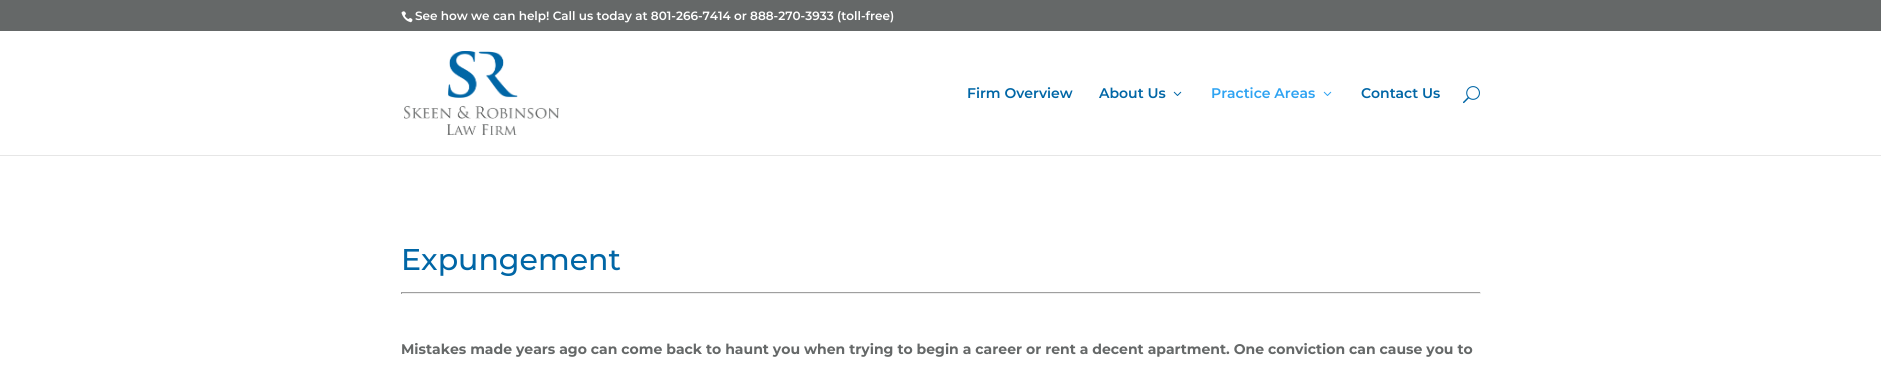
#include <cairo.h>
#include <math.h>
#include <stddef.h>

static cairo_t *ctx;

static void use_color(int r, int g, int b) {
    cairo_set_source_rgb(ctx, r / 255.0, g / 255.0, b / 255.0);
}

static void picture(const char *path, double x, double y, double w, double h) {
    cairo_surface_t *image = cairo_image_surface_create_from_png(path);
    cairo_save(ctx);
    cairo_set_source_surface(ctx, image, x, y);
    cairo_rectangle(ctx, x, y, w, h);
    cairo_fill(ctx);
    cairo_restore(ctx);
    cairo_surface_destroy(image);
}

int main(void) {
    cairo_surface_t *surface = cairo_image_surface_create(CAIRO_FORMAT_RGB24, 1881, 374);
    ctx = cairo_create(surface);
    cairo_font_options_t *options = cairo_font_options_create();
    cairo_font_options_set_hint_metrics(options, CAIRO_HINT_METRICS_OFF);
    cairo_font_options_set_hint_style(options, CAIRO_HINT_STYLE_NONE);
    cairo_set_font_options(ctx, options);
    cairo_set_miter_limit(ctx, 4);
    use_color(255, 255, 255);
    cairo_paint(ctx);
    use_color(101, 104, 104);
    cairo_rectangle(ctx, 0, 0, 1881, 31);
    cairo_fill(ctx);
    picture("img1.png", 401, 11, 12, 12);
    cairo_select_font_face(ctx, "Montserrat SemiBold", CAIRO_FONT_SLANT_NORMAL, CAIRO_FONT_WEIGHT_NORMAL);
    cairo_set_font_size(ctx, 12);
    use_color(255, 255, 255);
    cairo_move_to(ctx, 415, 20);
    cairo_show_text(ctx, "See how we can help! Call us today at 801-266-7414 or 888-270-3933 (toll-free)");
    use_color(230, 230, 230);
    cairo_rectangle(ctx, 0, 155, 1881, 1);
    cairo_fill(ctx);
    picture("img2.png", 404, 51, 155, 84);
    cairo_set_font_size(ctx, 14);
    use_color(0, 102, 166);
    cairo_move_to(ctx, 967, 98);
    cairo_show_text(ctx, "Firm Overview");
    cairo_move_to(ctx, 1099, 98);
    cairo_show_text(ctx, "About Us");
    picture("img3.png", 1173, 91, 9, 5);
    use_color(46, 163, 242);
    cairo_move_to(ctx, 1211, 98);
    cairo_show_text(ctx, "Practice Areas");
    picture("img4.png", 1323, 91, 9, 5);
    use_color(0, 102, 166);
    cairo_move_to(ctx, 1361, 98);
    cairo_show_text(ctx, "Contact Us");
    picture("img5.png", 1463, 86, 17, 18);
    cairo_select_font_face(ctx, "Montserrat Medium", CAIRO_FONT_SLANT_NORMAL, CAIRO_FONT_WEIGHT_NORMAL);
    cairo_set_font_size(ctx, 30);
    cairo_move_to(ctx, 401, 270);
    cairo_show_text(ctx, "Expungement");
    use_color(159, 159, 159);
    cairo_rectangle(ctx, 401, 292, 1080, 1);
    cairo_fill(ctx);
    use_color(238, 238, 238);
    cairo_rectangle(ctx, 1480, 292, 1, 2);
    cairo_fill(ctx);
    cairo_rectangle(ctx, 401, 293, 1080, 1);
    cairo_fill(ctx);
    use_color(159, 159, 159);
    cairo_rectangle(ctx, 401, 292, 1, 2);
    cairo_fill(ctx);
    cairo_select_font_face(ctx, "Montserrat", CAIRO_FONT_SLANT_NORMAL, CAIRO_FONT_WEIGHT_BOLD);
    cairo_set_font_size(ctx, 14);
    use_color(101, 104, 104);
    cairo_move_to(ctx, 401, 354);
    cairo_show_text(ctx, "Mistakes made years ago can come back to haunt you when trying to begin a career or rent a decent apartment. One conviction can cause you to");
    cairo_surface_write_to_png(surface, "result.png");
    cairo_font_options_destroy(options);
    cairo_destroy(ctx);
    cairo_surface_destroy(surface);
    return 0;
}
